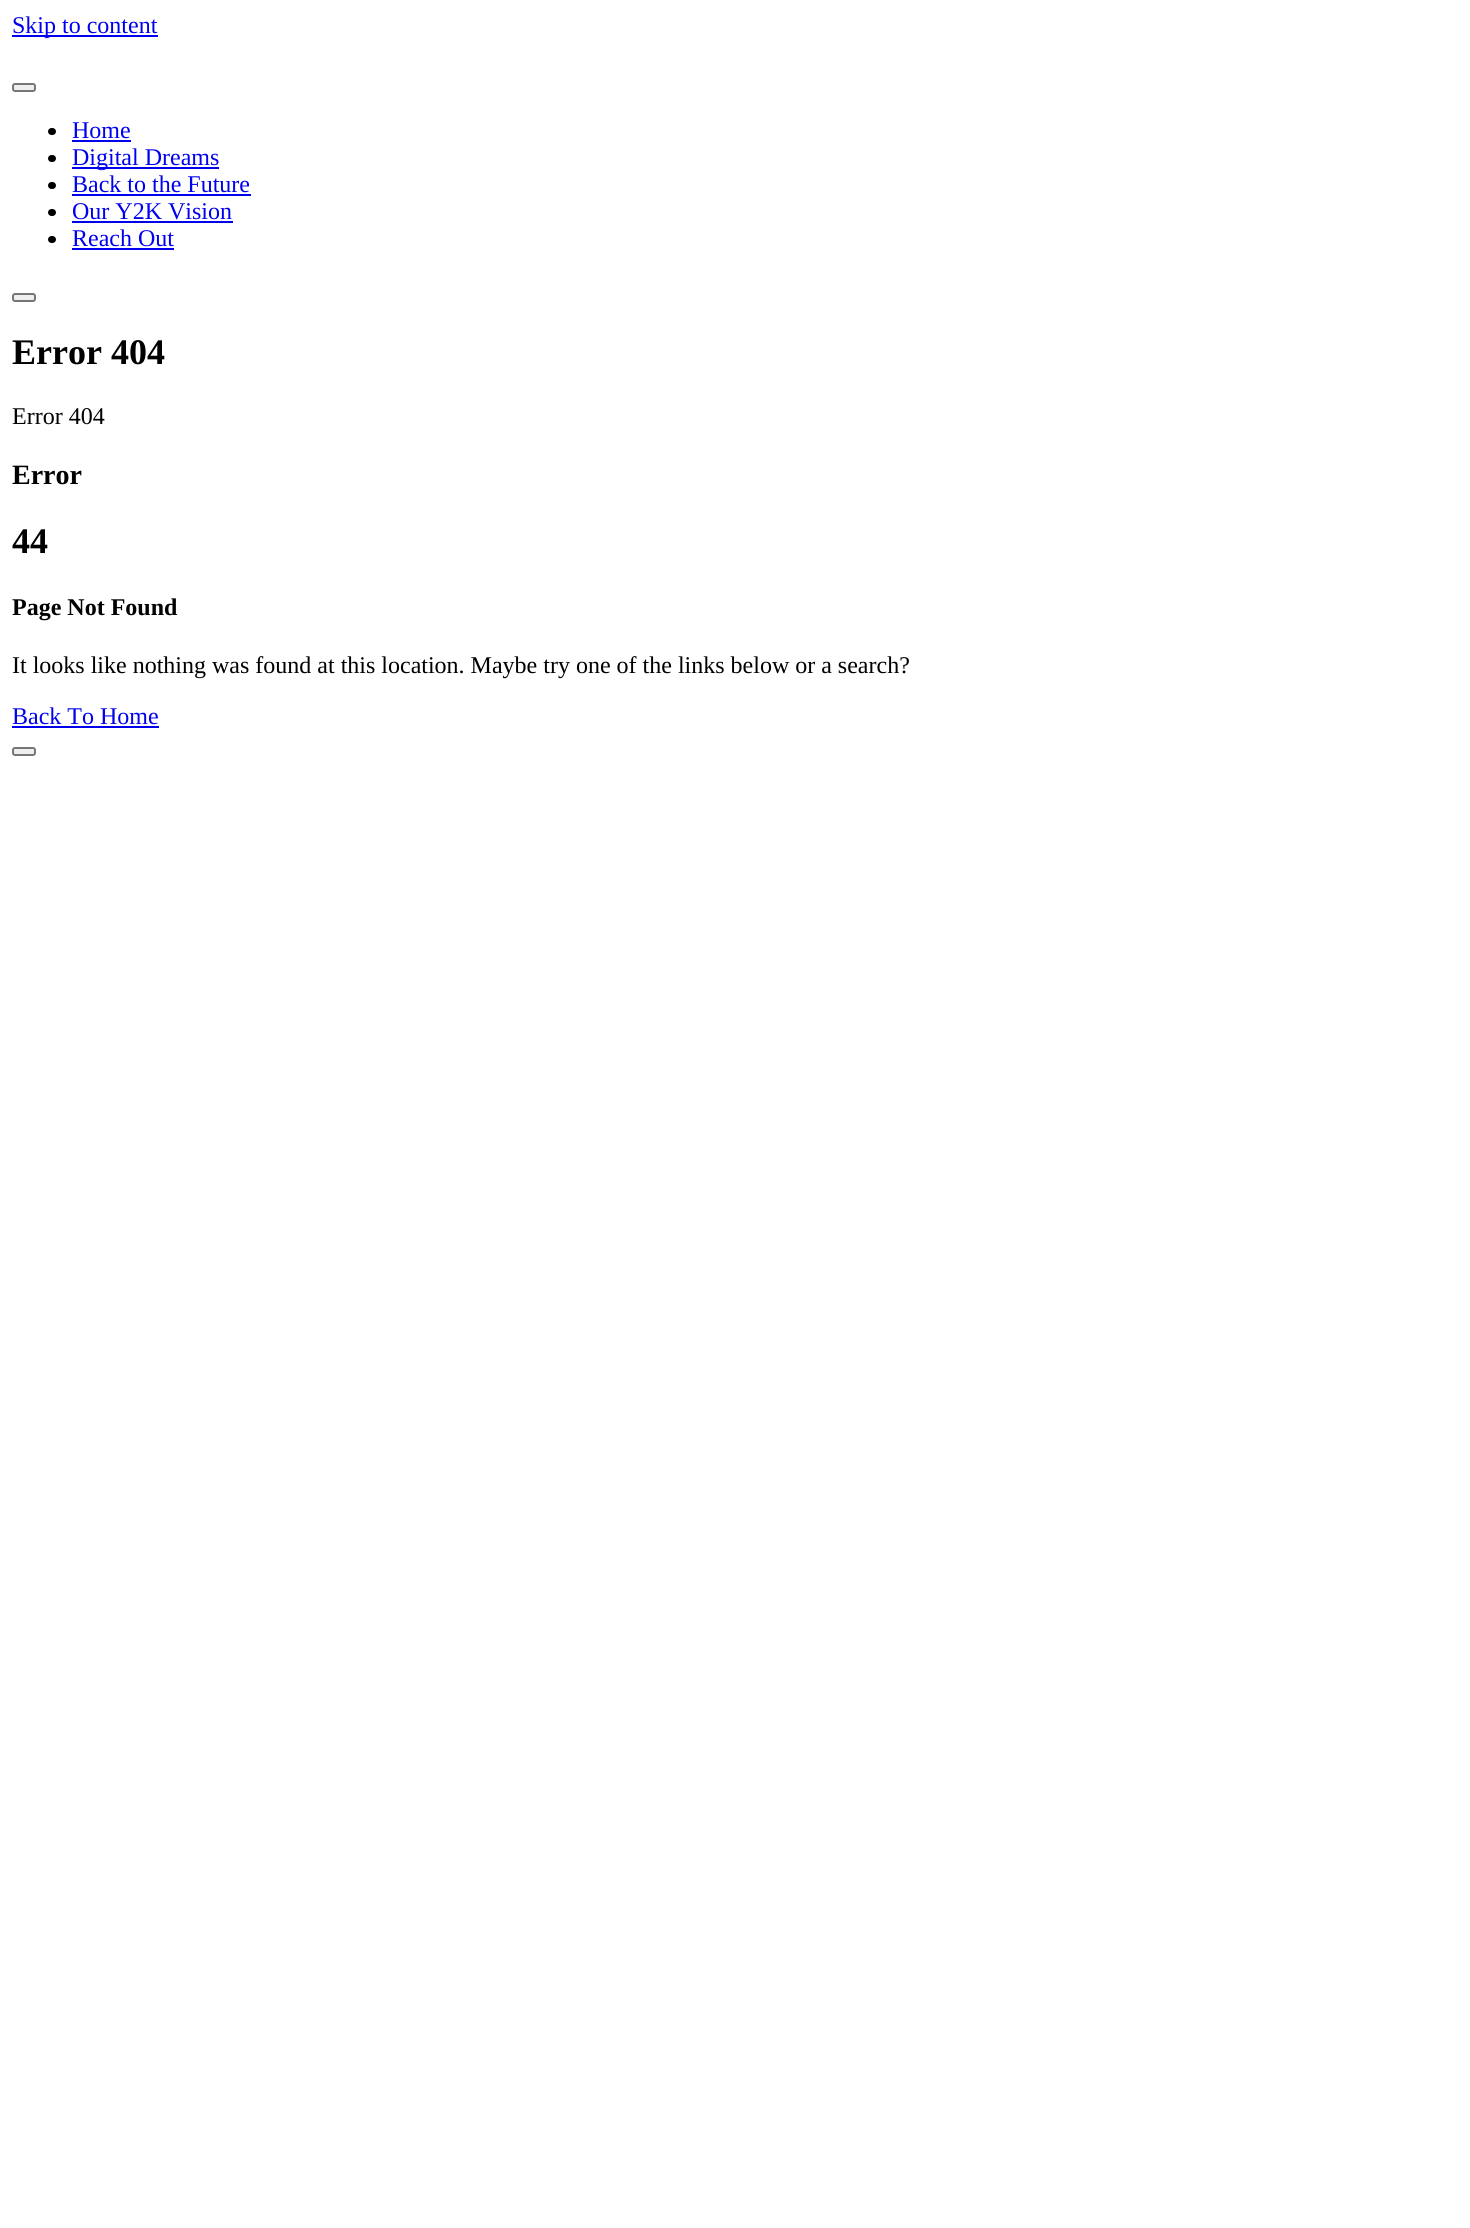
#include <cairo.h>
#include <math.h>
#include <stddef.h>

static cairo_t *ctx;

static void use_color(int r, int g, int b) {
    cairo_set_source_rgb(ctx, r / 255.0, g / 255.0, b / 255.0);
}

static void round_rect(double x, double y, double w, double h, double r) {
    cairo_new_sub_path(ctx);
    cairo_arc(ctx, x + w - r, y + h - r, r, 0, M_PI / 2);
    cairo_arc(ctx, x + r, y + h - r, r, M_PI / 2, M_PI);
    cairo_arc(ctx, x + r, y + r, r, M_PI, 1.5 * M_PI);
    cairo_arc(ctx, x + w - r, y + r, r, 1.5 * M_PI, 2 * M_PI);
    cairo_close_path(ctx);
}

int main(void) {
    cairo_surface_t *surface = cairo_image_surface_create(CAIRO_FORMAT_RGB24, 1470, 2228);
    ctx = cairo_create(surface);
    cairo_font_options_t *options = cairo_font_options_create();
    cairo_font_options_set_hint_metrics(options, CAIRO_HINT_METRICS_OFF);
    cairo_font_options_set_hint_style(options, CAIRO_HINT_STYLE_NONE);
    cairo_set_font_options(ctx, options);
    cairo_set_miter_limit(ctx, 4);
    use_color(255, 255, 255);
    cairo_paint(ctx);
    use_color(0, 0, 238);
    cairo_rectangle(ctx, 12, 35, 146, 2);
    cairo_fill(ctx);
    cairo_select_font_face(ctx, "Liberation Serif", CAIRO_FONT_SLANT_NORMAL, CAIRO_FONT_WEIGHT_NORMAL);
    cairo_set_font_size(ctx, 24);
    cairo_move_to(ctx, 12, 33);
    cairo_show_text(ctx, "Skip to content");
    use_color(239, 239, 239);
    round_rect(13, 84, 22, 7, 2);
    cairo_fill_preserve(ctx);
    use_color(118, 118, 118);
    cairo_stroke(ctx);
    use_color(0, 0, 0);
    round_rect(48, 128, 8, 7, 3.5);
    cairo_fill(ctx);
    use_color(0, 0, 238);
    cairo_move_to(ctx, 72, 138);
    cairo_show_text(ctx, "Home");
    cairo_rectangle(ctx, 72, 140, 59, 2);
    cairo_fill(ctx);
    use_color(0, 0, 0);
    round_rect(48, 155, 8, 7, 3.5);
    cairo_fill(ctx);
    use_color(0, 0, 238);
    cairo_rectangle(ctx, 72, 167, 147, 2);
    cairo_fill(ctx);
    cairo_move_to(ctx, 72, 165);
    cairo_show_text(ctx, "Digital Dreams");
    use_color(0, 0, 0);
    round_rect(48, 182, 8, 7, 3.5);
    cairo_fill(ctx);
    use_color(0, 0, 238);
    cairo_move_to(ctx, 72, 192);
    cairo_show_text(ctx, "Back to the Future");
    cairo_rectangle(ctx, 72, 194, 179, 2);
    cairo_fill(ctx);
    use_color(0, 0, 0);
    round_rect(48, 209, 8, 7, 3.5);
    cairo_fill(ctx);
    use_color(0, 0, 238);
    cairo_move_to(ctx, 72, 219);
    cairo_show_text(ctx, "Our Y2K Vision");
    cairo_rectangle(ctx, 72, 221, 161, 2);
    cairo_fill(ctx);
    use_color(0, 0, 0);
    round_rect(48, 236, 8, 7, 3.5);
    cairo_fill(ctx);
    use_color(0, 0, 238);
    cairo_move_to(ctx, 72, 246);
    cairo_show_text(ctx, "Reach Out");
    cairo_rectangle(ctx, 72, 248, 102, 2);
    cairo_fill(ctx);
    use_color(239, 239, 239);
    round_rect(13, 294, 22, 7, 2);
    cairo_fill_preserve(ctx);
    use_color(118, 118, 118);
    cairo_stroke(ctx);
    cairo_select_font_face(ctx, "Liberation Serif", CAIRO_FONT_SLANT_NORMAL, CAIRO_FONT_WEIGHT_BOLD);
    cairo_set_font_size(ctx, 36);
    use_color(0, 0, 0);
    cairo_move_to(ctx, 12, 364);
    cairo_show_text(ctx, "Error 404");
    cairo_select_font_face(ctx, "Liberation Serif", CAIRO_FONT_SLANT_NORMAL, CAIRO_FONT_WEIGHT_NORMAL);
    cairo_set_font_size(ctx, 24);
    cairo_move_to(ctx, 12, 424);
    cairo_show_text(ctx, "Error 404");
    cairo_select_font_face(ctx, "Liberation Serif", CAIRO_FONT_SLANT_NORMAL, CAIRO_FONT_WEIGHT_BOLD);
    cairo_set_font_size(ctx, 28);
    cairo_move_to(ctx, 12, 484);
    cairo_show_text(ctx, "Error");
    cairo_set_font_size(ctx, 36);
    cairo_move_to(ctx, 12, 553);
    cairo_show_text(ctx, "44");
    cairo_set_font_size(ctx, 24);
    cairo_move_to(ctx, 12, 615);
    cairo_show_text(ctx, "Page Not Found");
    cairo_select_font_face(ctx, "Liberation Serif", CAIRO_FONT_SLANT_NORMAL, CAIRO_FONT_WEIGHT_NORMAL);
    cairo_move_to(ctx, 12, 673);
    cairo_show_text(ctx, "It looks like nothing was found at this location. Maybe try one of the links below or a search?");
    use_color(0, 0, 238);
    cairo_move_to(ctx, 12, 724);
    cairo_show_text(ctx, "Back To Home");
    cairo_rectangle(ctx, 12, 726, 147, 2);
    cairo_fill(ctx);
    use_color(239, 239, 239);
    round_rect(13, 748, 22, 7, 2);
    cairo_fill_preserve(ctx);
    use_color(118, 118, 118);
    cairo_stroke(ctx);
    cairo_surface_write_to_png(surface, "result.png");
    cairo_font_options_destroy(options);
    cairo_destroy(ctx);
    cairo_surface_destroy(surface);
    return 0;
}
